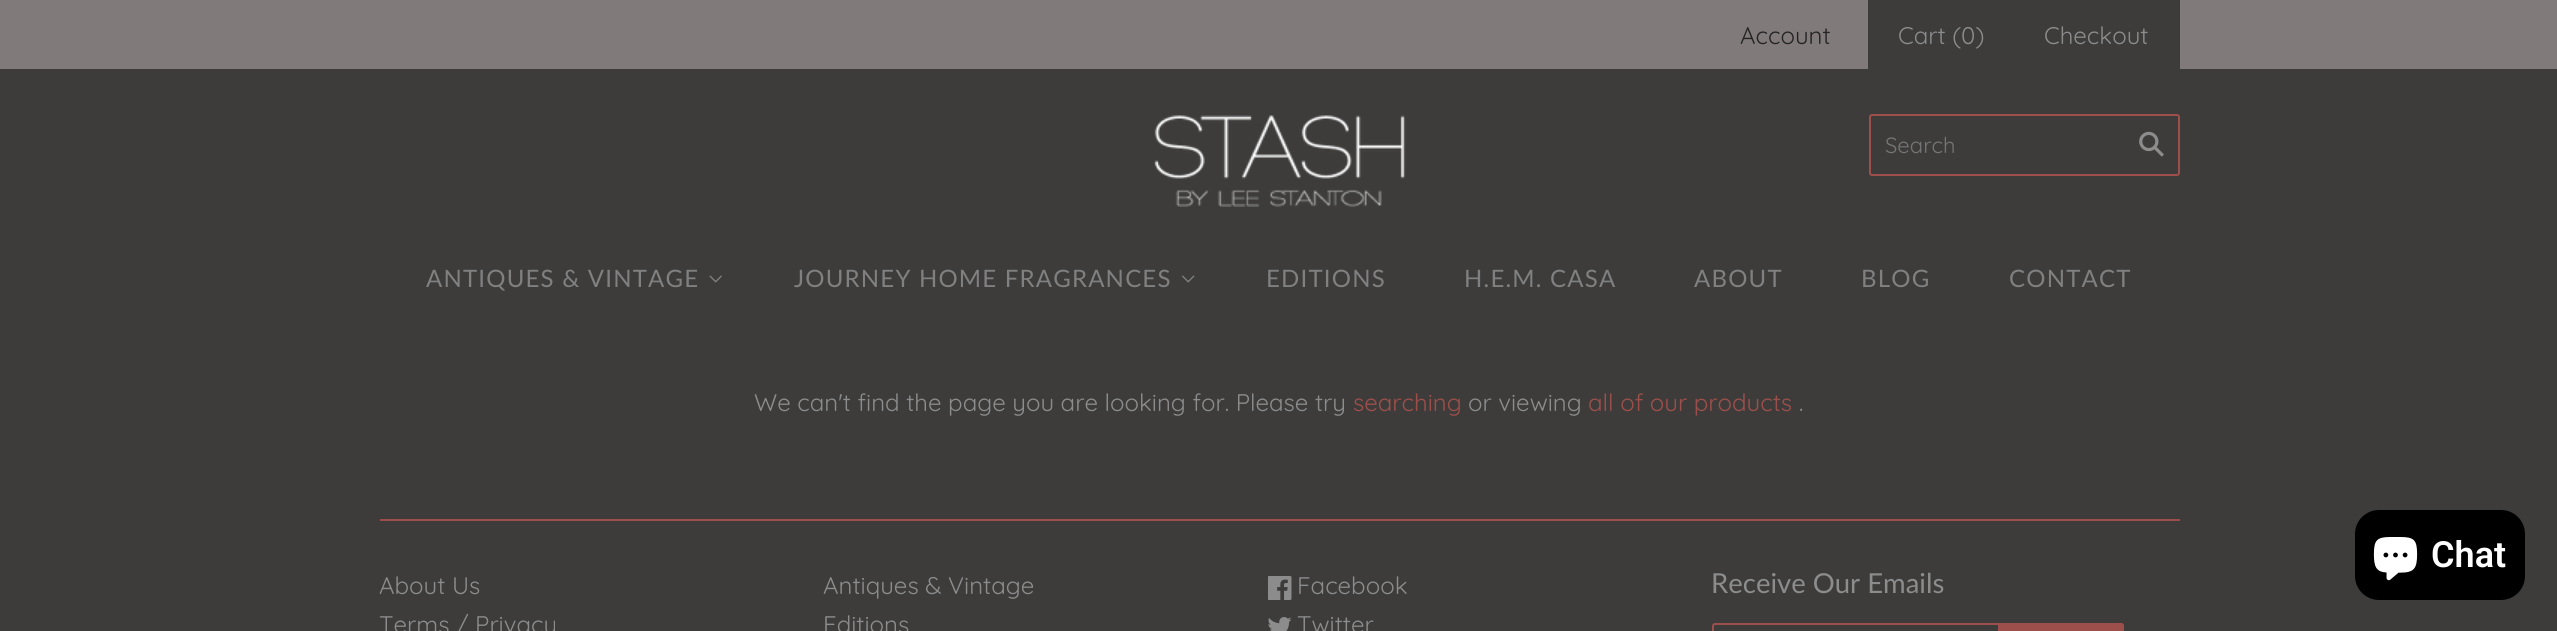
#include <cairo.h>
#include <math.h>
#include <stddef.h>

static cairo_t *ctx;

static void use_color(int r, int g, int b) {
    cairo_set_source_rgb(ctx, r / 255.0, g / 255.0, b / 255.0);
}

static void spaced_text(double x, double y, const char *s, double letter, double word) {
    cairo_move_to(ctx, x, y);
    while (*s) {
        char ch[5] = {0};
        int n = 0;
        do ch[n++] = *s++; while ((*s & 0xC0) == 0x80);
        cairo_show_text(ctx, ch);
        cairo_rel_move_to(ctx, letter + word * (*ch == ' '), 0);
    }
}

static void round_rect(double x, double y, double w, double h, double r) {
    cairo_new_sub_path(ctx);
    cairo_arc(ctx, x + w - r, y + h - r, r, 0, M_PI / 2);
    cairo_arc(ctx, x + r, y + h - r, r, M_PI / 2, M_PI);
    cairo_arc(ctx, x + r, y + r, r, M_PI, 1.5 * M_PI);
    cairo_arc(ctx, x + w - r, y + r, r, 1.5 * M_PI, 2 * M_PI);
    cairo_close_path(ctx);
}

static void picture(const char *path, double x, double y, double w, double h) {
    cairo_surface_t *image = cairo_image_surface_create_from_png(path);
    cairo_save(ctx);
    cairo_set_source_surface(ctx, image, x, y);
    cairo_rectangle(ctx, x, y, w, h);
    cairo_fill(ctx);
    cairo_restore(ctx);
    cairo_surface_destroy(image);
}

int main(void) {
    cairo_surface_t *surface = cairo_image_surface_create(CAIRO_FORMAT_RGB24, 2557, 631);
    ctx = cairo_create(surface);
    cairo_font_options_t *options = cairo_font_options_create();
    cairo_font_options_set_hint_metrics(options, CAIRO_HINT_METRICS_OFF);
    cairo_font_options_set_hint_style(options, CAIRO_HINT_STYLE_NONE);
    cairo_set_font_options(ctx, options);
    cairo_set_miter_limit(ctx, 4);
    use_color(61, 60, 59);
    cairo_paint(ctx);
    use_color(129, 122, 122);
    cairo_rectangle(ctx, 0, 0, 2557, 69);
    cairo_fill(ctx);
    cairo_select_font_face(ctx, "Quicksand", CAIRO_FONT_SLANT_NORMAL, CAIRO_FONT_WEIGHT_NORMAL);
    cairo_set_font_size(ctx, 24);
    use_color(36, 36, 36);
    cairo_move_to(ctx, 1740, 44);
    cairo_show_text(ctx, "Account");
    use_color(61, 60, 59);
    cairo_rectangle(ctx, 1868, 0, 312, 69);
    cairo_fill(ctx);
    use_color(140, 140, 140);
    cairo_move_to(ctx, 1898, 44);
    cairo_show_text(ctx, "Cart (0)");
    cairo_move_to(ctx, 2044, 44);
    cairo_show_text(ctx, "Checkout");
    picture("img1.png", 1154, 115, 252, 92);
    round_rect(1870, 115, 309, 60, 2);
    use_color(157, 79, 75);
    cairo_stroke(ctx);
    cairo_set_font_size(ctx, 22);
    use_color(117, 117, 117);
    cairo_move_to(ctx, 1885, 153);
    cairo_show_text(ctx, "Search");
    picture("img2.png", 2139, 131, 25, 26);
    cairo_select_font_face(ctx, "Lato", CAIRO_FONT_SLANT_NORMAL, CAIRO_FONT_WEIGHT_NORMAL);
    cairo_set_font_size(ctx, 24);
    use_color(128, 128, 128);
    spaced_text(426, 287, "ANTIQUES & VINTAGE", 1.2, 0);
    picture("img3.png", 709, 275, 13, 8);
    spaced_text(794, 287, "JOURNEY HOME FRAGRANCES", 1.2, 0);
    picture("img4.png", 1182, 275, 13, 8);
    spaced_text(1266, 287, "EDITIONS", 1.2, 0);
    spaced_text(1464, 287, "H.E.M. CASA", 1.2, 0);
    spaced_text(1694, 287, "ABOUT", 1.2, 0);
    spaced_text(1861, 287, "BLOG", 1.2, 0);
    spaced_text(2009, 287, "CONTACT", 1.2, 0);
    cairo_select_font_face(ctx, "Quicksand", CAIRO_FONT_SLANT_NORMAL, CAIRO_FONT_WEIGHT_NORMAL);
    use_color(140, 140, 140);
    cairo_move_to(ctx, 754, 411);
    cairo_show_text(ctx, "We can't find the page you are looking for. Please try");
    use_color(157, 79, 75);
    cairo_move_to(ctx, 1353, 411);
    cairo_show_text(ctx, "searching");
    use_color(140, 140, 140);
    cairo_move_to(ctx, 1468, 411);
    cairo_show_text(ctx, "or viewing");
    use_color(157, 79, 75);
    cairo_move_to(ctx, 1588, 411);
    cairo_show_text(ctx, "all of our products");
    use_color(140, 140, 140);
    cairo_move_to(ctx, 1799, 411);
    cairo_show_text(ctx, ".");
    use_color(0, 0, 0);
    round_rect(2355, 510, 170, 90, 24);
    cairo_fill(ctx);
    picture("img5.png", 2373, 537, 45, 44);
    cairo_select_font_face(ctx, "Roboto SemiBold", CAIRO_FONT_SLANT_NORMAL, CAIRO_FONT_WEIGHT_NORMAL);
    cairo_set_font_size(ctx, 36);
    use_color(255, 255, 255);
    cairo_move_to(ctx, 2431, 567);
    cairo_show_text(ctx, "Chat");
    use_color(157, 79, 75);
    cairo_rectangle(ctx, 380, 519, 1800, 2);
    cairo_fill(ctx);
    cairo_select_font_face(ctx, "Quicksand", CAIRO_FONT_SLANT_NORMAL, CAIRO_FONT_WEIGHT_NORMAL);
    cairo_set_font_size(ctx, 24);
    use_color(140, 140, 140);
    cairo_move_to(ctx, 379, 594);
    cairo_show_text(ctx, "About Us");
    cairo_move_to(ctx, 379, 633);
    cairo_show_text(ctx, "Terms / Privacy");
    cairo_move_to(ctx, 823, 594);
    cairo_show_text(ctx, "Antiques & Vintage");
    cairo_move_to(ctx, 823, 633);
    cairo_show_text(ctx, "Editions");
    picture("img6.png", 1268, 576, 24, 24);
    cairo_move_to(ctx, 1297, 594);
    cairo_show_text(ctx, "Facebook");
    picture("img7.png", 1268, 617, 24, 14);
    cairo_move_to(ctx, 1297, 633);
    cairo_show_text(ctx, "Twitter");
    cairo_select_font_face(ctx, "Lato", CAIRO_FONT_SLANT_NORMAL, CAIRO_FONT_WEIGHT_NORMAL);
    cairo_set_font_size(ctx, 27.5);
    cairo_move_to(ctx, 1711, 593);
    cairo_show_text(ctx, "Receive Our Emails");
    round_rect(1713, 624, 410, 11, 2);
    use_color(157, 79, 75);
    cairo_stroke(ctx);
    cairo_new_path(ctx);
    cairo_move_to(ctx, 1998, 623);
    cairo_line_to(ctx, 2121, 623);
    cairo_curve_to(ctx, 2122.5, 623, 2124, 624.5, 2124, 626);
    cairo_line_to(ctx, 2124, 631);
    cairo_curve_to(ctx, 2124, 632.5, 2122.5, 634, 2121, 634);
    cairo_line_to(ctx, 1998, 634);
    cairo_close_path(ctx);
    cairo_fill(ctx);
    cairo_surface_write_to_png(surface, "result.png");
    cairo_font_options_destroy(options);
    cairo_destroy(ctx);
    cairo_surface_destroy(surface);
    return 0;
}
